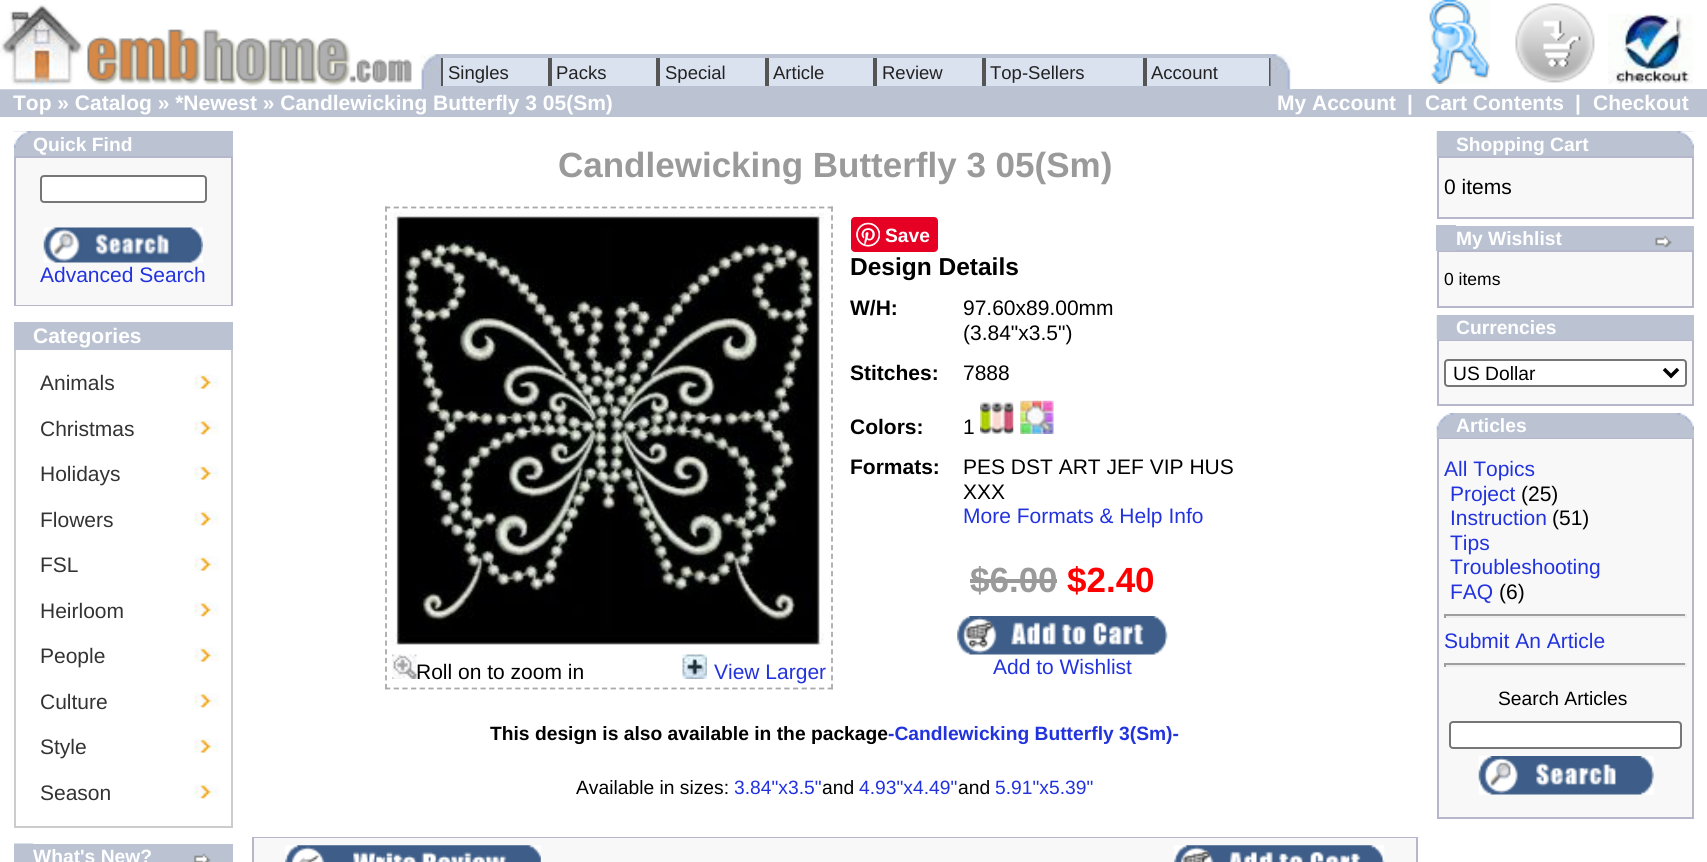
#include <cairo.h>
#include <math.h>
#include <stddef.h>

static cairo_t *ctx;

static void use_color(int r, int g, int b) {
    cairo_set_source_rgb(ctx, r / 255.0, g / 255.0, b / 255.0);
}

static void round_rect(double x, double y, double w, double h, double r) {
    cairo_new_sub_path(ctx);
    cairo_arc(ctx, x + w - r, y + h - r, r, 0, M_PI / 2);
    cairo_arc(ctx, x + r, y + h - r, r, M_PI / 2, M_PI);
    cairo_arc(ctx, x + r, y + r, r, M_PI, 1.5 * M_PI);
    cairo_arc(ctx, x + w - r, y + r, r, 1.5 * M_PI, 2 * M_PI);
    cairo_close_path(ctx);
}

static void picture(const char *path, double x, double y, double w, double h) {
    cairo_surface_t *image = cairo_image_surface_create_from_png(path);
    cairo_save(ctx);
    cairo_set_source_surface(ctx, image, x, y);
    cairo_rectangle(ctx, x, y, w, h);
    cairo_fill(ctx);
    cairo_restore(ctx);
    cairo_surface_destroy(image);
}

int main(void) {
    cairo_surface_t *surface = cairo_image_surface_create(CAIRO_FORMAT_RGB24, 1707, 862);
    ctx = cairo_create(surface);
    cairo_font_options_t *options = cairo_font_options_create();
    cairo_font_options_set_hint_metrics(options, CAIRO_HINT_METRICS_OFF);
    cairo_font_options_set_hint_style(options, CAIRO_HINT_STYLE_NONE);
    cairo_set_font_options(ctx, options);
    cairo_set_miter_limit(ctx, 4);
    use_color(255, 255, 255);
    cairo_paint(ctx);
    use_color(187, 195, 211);
    cairo_rectangle(ctx, 0, 89, 1707, 28);
    cairo_fill(ctx);
    picture("img1.png", 0, 4, 419, 86);
    picture("img2.png", 420, 54, 21, 36);
    cairo_rectangle(ctx, 441, 54, 830, 35);
    cairo_fill(ctx);
    use_color(219, 226, 239);
    cairo_rectangle(ctx, 443, 58, 105, 28);
    cairo_fill(ctx);
    use_color(85, 85, 85);
    cairo_rectangle(ctx, 548, 58, 4, 28);
    cairo_fill(ctx);
    cairo_rectangle(ctx, 441, 58, 2, 28);
    cairo_fill(ctx);
    cairo_select_font_face(ctx, "Liberation Sans", CAIRO_FONT_SLANT_NORMAL, CAIRO_FONT_WEIGHT_NORMAL);
    cairo_set_font_size(ctx, 18.5);
    use_color(34, 34, 34);
    cairo_move_to(ctx, 448, 79);
    cairo_show_text(ctx, "Singles");
    use_color(219, 226, 239);
    cairo_rectangle(ctx, 552, 58, 104, 28);
    cairo_fill(ctx);
    use_color(85, 85, 85);
    cairo_rectangle(ctx, 656, 58, 4, 28);
    cairo_fill(ctx);
    use_color(34, 34, 34);
    cairo_move_to(ctx, 556, 79);
    cairo_show_text(ctx, "Packs");
    use_color(219, 226, 239);
    cairo_rectangle(ctx, 660, 58, 105, 28);
    cairo_fill(ctx);
    use_color(85, 85, 85);
    cairo_rectangle(ctx, 765, 58, 4, 28);
    cairo_fill(ctx);
    use_color(34, 34, 34);
    cairo_move_to(ctx, 665, 79);
    cairo_show_text(ctx, "Special");
    use_color(219, 226, 239);
    cairo_rectangle(ctx, 769, 58, 104, 28);
    cairo_fill(ctx);
    use_color(85, 85, 85);
    cairo_rectangle(ctx, 873, 58, 4, 28);
    cairo_fill(ctx);
    use_color(34, 34, 34);
    cairo_move_to(ctx, 773, 79);
    cairo_show_text(ctx, "Article");
    use_color(219, 226, 239);
    cairo_rectangle(ctx, 877, 58, 105, 28);
    cairo_fill(ctx);
    use_color(85, 85, 85);
    cairo_rectangle(ctx, 982, 58, 4, 28);
    cairo_fill(ctx);
    use_color(34, 34, 34);
    cairo_move_to(ctx, 882, 79);
    cairo_show_text(ctx, "Review");
    use_color(219, 226, 239);
    cairo_rectangle(ctx, 986, 58, 157, 28);
    cairo_fill(ctx);
    use_color(85, 85, 85);
    cairo_rectangle(ctx, 1143, 58, 4, 28);
    cairo_fill(ctx);
    use_color(34, 34, 34);
    cairo_move_to(ctx, 990, 79);
    cairo_show_text(ctx, "Top-Sellers");
    use_color(219, 226, 239);
    cairo_rectangle(ctx, 1147, 58, 122, 28);
    cairo_fill(ctx);
    use_color(85, 85, 85);
    cairo_rectangle(ctx, 1269, 58, 2, 28);
    cairo_fill(ctx);
    use_color(34, 34, 34);
    cairo_move_to(ctx, 1151, 79);
    cairo_show_text(ctx, "Account");
    picture("img3.png", 1270, 54, 22, 36);
    picture("img4.png", 1429, 0, 61, 84);
    picture("img5.png", 1515, 3, 80, 80);
    picture("img6.png", 1608, 14, 85, 70);
    cairo_select_font_face(ctx, "Liberation Sans", CAIRO_FONT_SLANT_NORMAL, CAIRO_FONT_WEIGHT_BOLD);
    cairo_set_font_size(ctx, 21);
    use_color(255, 255, 255);
    cairo_move_to(ctx, 13, 110);
    cairo_show_text(ctx, "Top » Catalog » *Newest » Candlewicking Butterfly 3 05(Sm)");
    cairo_move_to(ctx, 1277, 110);
    cairo_show_text(ctx, "My Account");
    cairo_move_to(ctx, 1407, 110);
    cairo_show_text(ctx, "|");
    cairo_move_to(ctx, 1425, 110);
    cairo_show_text(ctx, "Cart Contents");
    cairo_move_to(ctx, 1575, 110);
    cairo_show_text(ctx, "|");
    cairo_move_to(ctx, 1593, 110);
    cairo_show_text(ctx, "Checkout");
    use_color(187, 195, 211);
    cairo_rectangle(ctx, 14, 131, 219, 25);
    cairo_fill(ctx);
    picture("img7.png", 14, 131, 17, 18);
    cairo_set_font_size(ctx, 19.25);
    use_color(255, 255, 255);
    cairo_move_to(ctx, 33, 151);
    cairo_show_text(ctx, "Quick Find");
    use_color(182, 183, 203);
    cairo_rectangle(ctx, 14, 156, 219, 150);
    cairo_fill(ctx);
    use_color(248, 248, 249);
    cairo_rectangle(ctx, 16, 158, 215, 147);
    cairo_fill(ctx);
    use_color(255, 255, 255);
    round_rect(41, 176, 165, 26, 3);
    cairo_fill_preserve(ctx);
    use_color(118, 118, 118);
    cairo_stroke(ctx);
    picture("img8.png", 43, 227, 160, 36);
    cairo_select_font_face(ctx, "Liberation Sans", CAIRO_FONT_SLANT_NORMAL, CAIRO_FONT_WEIGHT_NORMAL);
    cairo_set_font_size(ctx, 21);
    use_color(34, 51, 221);
    cairo_move_to(ctx, 40, 282);
    cairo_show_text(ctx, "Advanced Search");
    use_color(187, 195, 211);
    cairo_rectangle(ctx, 14, 322, 219, 28);
    cairo_fill(ctx);
    cairo_select_font_face(ctx, "Liberation Sans", CAIRO_FONT_SLANT_NORMAL, CAIRO_FONT_WEIGHT_BOLD);
    use_color(255, 255, 255);
    cairo_move_to(ctx, 33, 343);
    cairo_show_text(ctx, "Categories");
    use_color(204, 204, 204);
    cairo_rectangle(ctx, 231, 350, 2, 478);
    cairo_fill(ctx);
    cairo_rectangle(ctx, 14, 826, 219, 2);
    cairo_fill(ctx);
    cairo_rectangle(ctx, 14, 350, 2, 478);
    cairo_fill(ctx);
    picture("img9.png", 194, 374, 25, 15);
    cairo_select_font_face(ctx, "Liberation Sans", CAIRO_FONT_SLANT_NORMAL, CAIRO_FONT_WEIGHT_NORMAL);
    use_color(51, 51, 51);
    cairo_move_to(ctx, 40, 390);
    cairo_show_text(ctx, "Animals");
    picture("img10.png", 194, 420, 25, 15);
    cairo_move_to(ctx, 40, 436);
    cairo_show_text(ctx, "Christmas");
    picture("img9.png", 194, 465, 25, 15);
    cairo_move_to(ctx, 40, 481);
    cairo_show_text(ctx, "Holidays");
    picture("img10.png", 194, 511, 25, 15);
    cairo_move_to(ctx, 40, 527);
    cairo_show_text(ctx, "Flowers");
    picture("img9.png", 194, 556, 25, 15);
    cairo_move_to(ctx, 40, 572);
    cairo_show_text(ctx, "FSL");
    picture("img10.png", 194, 602, 25, 15);
    cairo_move_to(ctx, 40, 618);
    cairo_show_text(ctx, "Heirloom");
    picture("img9.png", 194, 647, 25, 15);
    cairo_move_to(ctx, 40, 663);
    cairo_show_text(ctx, "People");
    picture("img10.png", 194, 693, 25, 15);
    cairo_move_to(ctx, 40, 709);
    cairo_show_text(ctx, "Culture");
    picture("img9.png", 194, 738, 25, 15);
    cairo_move_to(ctx, 40, 754);
    cairo_show_text(ctx, "Style");
    picture("img10.png", 194, 784, 25, 15);
    cairo_move_to(ctx, 40, 800);
    cairo_show_text(ctx, "Season");
    use_color(187, 195, 211);
    cairo_rectangle(ctx, 14, 844, 219, 18);
    cairo_fill(ctx);
    picture("img11.png", 14, 843, 20, 1);
    cairo_select_font_face(ctx, "Liberation Sans", CAIRO_FONT_SLANT_NORMAL, CAIRO_FONT_WEIGHT_BOLD);
    cairo_set_font_size(ctx, 19.25);
    use_color(255, 255, 255);
    cairo_move_to(ctx, 33, 863);
    cairo_show_text(ctx, "What's New?");
    picture("img12.png", 193, 853, 18, 9);
    cairo_set_font_size(ctx, 35);
    use_color(154, 154, 154);
    cairo_move_to(ctx, 558, 177);
    cairo_show_text(ctx, "Candlewicking Butterfly 3 05(Sm)");
    cairo_new_path(ctx);
    cairo_move_to(ctx, 385, 207.5);
    cairo_line_to(ctx, 833, 207.5);
    use_color(170, 170, 170);
    cairo_set_line_width(ctx, 1.8);
    cairo_set_dash(ctx, (double[]){5.25, 3.43}, 2, 0);
    cairo_stroke(ctx);
    cairo_new_path(ctx);
    cairo_move_to(ctx, 832, 206.5);
    cairo_line_to(ctx, 832, 689.5);
    cairo_stroke(ctx);
    cairo_new_path(ctx);
    cairo_move_to(ctx, 385, 688.5);
    cairo_line_to(ctx, 833, 688.5);
    cairo_stroke(ctx);
    cairo_new_path(ctx);
    cairo_move_to(ctx, 386, 206.5);
    cairo_line_to(ctx, 386, 689.5);
    cairo_stroke(ctx);
    picture("img13.png", 390, 212, 434, 434);
    picture("img14.png", 392, 654, 25, 25);
    cairo_select_font_face(ctx, "Liberation Sans", CAIRO_FONT_SLANT_NORMAL, CAIRO_FONT_WEIGHT_NORMAL);
    cairo_set_font_size(ctx, 21);
    use_color(0, 0, 0);
    cairo_move_to(ctx, 416, 679);
    cairo_show_text(ctx, "Roll on to zoom in");
    picture("img15.png", 682, 654, 25, 25);
    use_color(34, 51, 221);
    cairo_move_to(ctx, 714, 679);
    cairo_show_text(ctx, "View Larger");
    use_color(230, 0, 35);
    round_rect(851, 217, 87, 35, 4);
    cairo_fill(ctx);
    picture("img16.png", 856, 222, 24, 25);
    cairo_select_font_face(ctx, "Liberation Sans", CAIRO_FONT_SLANT_NORMAL, CAIRO_FONT_WEIGHT_BOLD);
    cairo_set_font_size(ctx, 19.25);
    use_color(255, 255, 255);
    cairo_move_to(ctx, 885, 242);
    cairo_show_text(ctx, "Save");
    cairo_set_font_size(ctx, 24.5);
    use_color(0, 0, 0);
    cairo_move_to(ctx, 850, 275);
    cairo_show_text(ctx, "Design Details");
    cairo_set_font_size(ctx, 21);
    cairo_move_to(ctx, 850, 315);
    cairo_show_text(ctx, "W/H:");
    cairo_select_font_face(ctx, "Liberation Sans", CAIRO_FONT_SLANT_NORMAL, CAIRO_FONT_WEIGHT_NORMAL);
    cairo_move_to(ctx, 963, 315);
    cairo_show_text(ctx, "97.60x89.00mm");
    cairo_move_to(ctx, 963, 340);
    cairo_show_text(ctx, "(3.84\"x3.5\")");
    cairo_select_font_face(ctx, "Liberation Sans", CAIRO_FONT_SLANT_NORMAL, CAIRO_FONT_WEIGHT_BOLD);
    cairo_move_to(ctx, 850, 380);
    cairo_show_text(ctx, "Stitches:");
    cairo_select_font_face(ctx, "Liberation Sans", CAIRO_FONT_SLANT_NORMAL, CAIRO_FONT_WEIGHT_NORMAL);
    cairo_move_to(ctx, 963, 380);
    cairo_show_text(ctx, "7888");
    cairo_select_font_face(ctx, "Liberation Sans", CAIRO_FONT_SLANT_NORMAL, CAIRO_FONT_WEIGHT_BOLD);
    cairo_move_to(ctx, 850, 434);
    cairo_show_text(ctx, "Colors:");
    cairo_select_font_face(ctx, "Liberation Sans", CAIRO_FONT_SLANT_NORMAL, CAIRO_FONT_WEIGHT_NORMAL);
    cairo_move_to(ctx, 963, 434);
    cairo_show_text(ctx, "1");
    picture("img17.png", 980, 401, 34, 33);
    picture("img18.png", 1020, 400, 34, 34);
    cairo_select_font_face(ctx, "Liberation Sans", CAIRO_FONT_SLANT_NORMAL, CAIRO_FONT_WEIGHT_BOLD);
    cairo_move_to(ctx, 850, 474);
    cairo_show_text(ctx, "Formats:");
    cairo_select_font_face(ctx, "Liberation Sans", CAIRO_FONT_SLANT_NORMAL, CAIRO_FONT_WEIGHT_NORMAL);
    cairo_move_to(ctx, 963, 474);
    cairo_show_text(ctx, "PES DST ART JEF VIP HUS");
    cairo_move_to(ctx, 963, 499);
    cairo_show_text(ctx, "XXX");
    use_color(34, 51, 221);
    cairo_move_to(ctx, 963, 523);
    cairo_show_text(ctx, "More Formats & Help Info");
    cairo_select_font_face(ctx, "Liberation Sans", CAIRO_FONT_SLANT_NORMAL, CAIRO_FONT_WEIGHT_BOLD);
    cairo_set_font_size(ctx, 35);
    use_color(154, 154, 154);
    cairo_move_to(ctx, 970, 592);
    cairo_show_text(ctx, "$6.00");
    cairo_rectangle(ctx, 970, 579, 87, 4);
    cairo_fill(ctx);
    use_color(255, 0, 0);
    cairo_move_to(ctx, 1067, 592);
    cairo_show_text(ctx, "$2.40");
    picture("img19.png", 957, 616, 211, 39);
    cairo_select_font_face(ctx, "Liberation Sans", CAIRO_FONT_SLANT_NORMAL, CAIRO_FONT_WEIGHT_NORMAL);
    cairo_set_font_size(ctx, 21);
    use_color(34, 51, 221);
    cairo_move_to(ctx, 993, 674);
    cairo_show_text(ctx, "Add to Wishlist");
    cairo_select_font_face(ctx, "Liberation Sans", CAIRO_FONT_SLANT_NORMAL, CAIRO_FONT_WEIGHT_BOLD);
    cairo_set_font_size(ctx, 19.25);
    use_color(0, 0, 0);
    cairo_move_to(ctx, 490, 740);
    cairo_show_text(ctx, "This design is also available in the package");
    use_color(34, 51, 221);
    cairo_move_to(ctx, 888, 740);
    cairo_show_text(ctx, "-Candlewicking Butterfly 3(Sm)-");
    cairo_select_font_face(ctx, "Liberation Sans", CAIRO_FONT_SLANT_NORMAL, CAIRO_FONT_WEIGHT_NORMAL);
    use_color(0, 0, 0);
    cairo_move_to(ctx, 576, 794);
    cairo_show_text(ctx, "Available in sizes:");
    use_color(34, 51, 221);
    cairo_move_to(ctx, 734, 794);
    cairo_show_text(ctx, "3.84\"x3.5\"");
    use_color(0, 0, 0);
    cairo_move_to(ctx, 822, 794);
    cairo_show_text(ctx, "and");
    use_color(34, 51, 221);
    cairo_move_to(ctx, 859, 794);
    cairo_show_text(ctx, "4.93\"x4.49\"");
    use_color(0, 0, 0);
    cairo_move_to(ctx, 958, 794);
    cairo_show_text(ctx, "and");
    use_color(34, 51, 221);
    cairo_move_to(ctx, 995, 794);
    cairo_show_text(ctx, "5.91\"x5.39\"");
    use_color(182, 183, 203);
    cairo_rectangle(ctx, 252, 837, 1166, 25);
    cairo_fill(ctx);
    use_color(248, 248, 249);
    cairo_rectangle(ctx, 254, 838, 1162, 24);
    cairo_fill(ctx);
    picture("img20.png", 285, 845, 256, 17);
    picture("img21.png", 1174, 845, 211, 17);
    use_color(187, 195, 211);
    cairo_rectangle(ctx, 1437, 131, 257, 25);
    cairo_fill(ctx);
    picture("img22.png", 1436, 131, 1, 25);
    cairo_select_font_face(ctx, "Liberation Sans", CAIRO_FONT_SLANT_NORMAL, CAIRO_FONT_WEIGHT_BOLD);
    use_color(255, 255, 255);
    cairo_move_to(ctx, 1456, 151);
    cairo_show_text(ctx, "Shopping Cart");
    picture("img23.png", 1677, 131, 17, 18);
    use_color(182, 183, 203);
    cairo_rectangle(ctx, 1437, 156, 257, 63);
    cairo_fill(ctx);
    use_color(248, 248, 249);
    cairo_rectangle(ctx, 1439, 158, 253, 59);
    cairo_fill(ctx);
    cairo_select_font_face(ctx, "Liberation Sans", CAIRO_FONT_SLANT_NORMAL, CAIRO_FONT_WEIGHT_NORMAL);
    cairo_set_font_size(ctx, 21);
    use_color(0, 0, 0);
    cairo_move_to(ctx, 1444, 194);
    cairo_show_text(ctx, "0 items");
    use_color(182, 183, 203);
    cairo_rectangle(ctx, 1437, 250, 257, 58);
    cairo_fill(ctx);
    use_color(187, 195, 211);
    cairo_rectangle(ctx, 1436, 225, 20, 26);
    cairo_fill(ctx);
    cairo_rectangle(ctx, 1456, 226, 238, 24);
    cairo_fill(ctx);
    cairo_select_font_face(ctx, "Liberation Sans", CAIRO_FONT_SLANT_NORMAL, CAIRO_FONT_WEIGHT_BOLD);
    cairo_set_font_size(ctx, 19.25);
    use_color(255, 255, 255);
    cairo_move_to(ctx, 1456, 245);
    cairo_show_text(ctx, "My Wishlist");
    picture("img24.png", 1655, 236, 17, 12);
    use_color(248, 248, 249);
    cairo_rectangle(ctx, 1439, 252, 253, 54);
    cairo_fill(ctx);
    cairo_select_font_face(ctx, "Liberation Sans", CAIRO_FONT_SLANT_NORMAL, CAIRO_FONT_WEIGHT_NORMAL);
    cairo_set_font_size(ctx, 17.5);
    use_color(0, 0, 0);
    cairo_move_to(ctx, 1444, 285);
    cairo_show_text(ctx, "0 items");
    use_color(187, 195, 211);
    cairo_rectangle(ctx, 1437, 315, 257, 25);
    cairo_fill(ctx);
    picture("img25.png", 1436, 315, 1, 25);
    cairo_select_font_face(ctx, "Liberation Sans", CAIRO_FONT_SLANT_NORMAL, CAIRO_FONT_WEIGHT_BOLD);
    cairo_set_font_size(ctx, 19.25);
    use_color(255, 255, 255);
    cairo_move_to(ctx, 1456, 334);
    cairo_show_text(ctx, "Currencies");
    use_color(182, 183, 203);
    cairo_rectangle(ctx, 1437, 340, 257, 66);
    cairo_fill(ctx);
    use_color(248, 248, 249);
    cairo_rectangle(ctx, 1439, 341, 253, 63);
    cairo_fill(ctx);
    use_color(255, 255, 255);
    round_rect(1445, 360, 241, 26, 3);
    cairo_fill_preserve(ctx);
    use_color(118, 118, 118);
    cairo_set_line_width(ctx, 2);
    cairo_set_dash(ctx, NULL, 0, 0);
    cairo_stroke(ctx);
    cairo_new_path(ctx);
    cairo_move_to(ctx, 1664, 369);
    cairo_line_to(ctx, 1671, 376);
    cairo_line_to(ctx, 1678, 369);
    use_color(0, 0, 0);
    cairo_set_line_width(ctx, 3.5);
    cairo_stroke(ctx);
    cairo_select_font_face(ctx, "Liberation Sans", CAIRO_FONT_SLANT_NORMAL, CAIRO_FONT_WEIGHT_NORMAL);
    cairo_move_to(ctx, 1453, 380);
    cairo_show_text(ctx, "US Dollar");
    use_color(187, 195, 211);
    cairo_rectangle(ctx, 1437, 413, 257, 25);
    cairo_fill(ctx);
    picture("img26.png", 1436, 413, 18, 25);
    cairo_select_font_face(ctx, "Liberation Sans", CAIRO_FONT_SLANT_NORMAL, CAIRO_FONT_WEIGHT_BOLD);
    use_color(255, 255, 255);
    cairo_move_to(ctx, 1456, 432);
    cairo_show_text(ctx, "Articles");
    picture("img27.png", 1676, 413, 18, 18);
    use_color(182, 183, 203);
    cairo_rectangle(ctx, 1437, 438, 257, 381);
    cairo_fill(ctx);
    use_color(248, 248, 249);
    cairo_rectangle(ctx, 1439, 439, 253, 378);
    cairo_fill(ctx);
    cairo_select_font_face(ctx, "Liberation Sans", CAIRO_FONT_SLANT_NORMAL, CAIRO_FONT_WEIGHT_NORMAL);
    cairo_set_font_size(ctx, 21);
    use_color(34, 51, 221);
    cairo_move_to(ctx, 1444, 476);
    cairo_show_text(ctx, "All Topics");
    cairo_move_to(ctx, 1450, 501);
    cairo_show_text(ctx, "Project");
    use_color(0, 0, 0);
    cairo_move_to(ctx, 1521, 501);
    cairo_show_text(ctx, "(25)");
    use_color(34, 51, 221);
    cairo_move_to(ctx, 1450, 525);
    cairo_show_text(ctx, "Instruction");
    use_color(0, 0, 0);
    cairo_move_to(ctx, 1552, 525);
    cairo_show_text(ctx, "(51)");
    use_color(34, 51, 221);
    cairo_move_to(ctx, 1450, 550);
    cairo_show_text(ctx, "Tips");
    cairo_move_to(ctx, 1450, 574);
    cairo_show_text(ctx, "Troubleshooting");
    cairo_move_to(ctx, 1450, 599);
    cairo_show_text(ctx, "FAQ");
    use_color(0, 0, 0);
    cairo_move_to(ctx, 1499, 599);
    cairo_show_text(ctx, "(6)");
    use_color(159, 159, 159);
    cairo_rectangle(ctx, 1444, 614, 243, 2);
    cairo_fill(ctx);
    use_color(238, 238, 238);
    cairo_rectangle(ctx, 1685, 614, 2, 4);
    cairo_fill(ctx);
    cairo_rectangle(ctx, 1444, 616, 243, 2);
    cairo_fill(ctx);
    use_color(159, 159, 159);
    cairo_rectangle(ctx, 1444, 614, 2, 4);
    cairo_fill(ctx);
    use_color(34, 51, 221);
    cairo_move_to(ctx, 1444, 648);
    cairo_show_text(ctx, "Submit An Article");
    use_color(159, 159, 159);
    cairo_rectangle(ctx, 1444, 663, 243, 2);
    cairo_fill(ctx);
    use_color(238, 238, 238);
    cairo_rectangle(ctx, 1685, 663, 2, 4);
    cairo_fill(ctx);
    cairo_rectangle(ctx, 1444, 665, 243, 2);
    cairo_fill(ctx);
    use_color(159, 159, 159);
    cairo_rectangle(ctx, 1444, 663, 2, 4);
    cairo_fill(ctx);
    cairo_set_font_size(ctx, 19.25);
    use_color(0, 0, 0);
    cairo_move_to(ctx, 1498, 705);
    cairo_show_text(ctx, "Search Articles");
    use_color(255, 255, 255);
    round_rect(1450, 722, 231, 26, 3);
    cairo_fill_preserve(ctx);
    use_color(118, 118, 118);
    cairo_set_line_width(ctx, 2);
    cairo_stroke(ctx);
    picture("img28.png", 1478, 756, 176, 39);
    cairo_surface_write_to_png(surface, "result.png");
    cairo_font_options_destroy(options);
    cairo_destroy(ctx);
    cairo_surface_destroy(surface);
    return 0;
}
